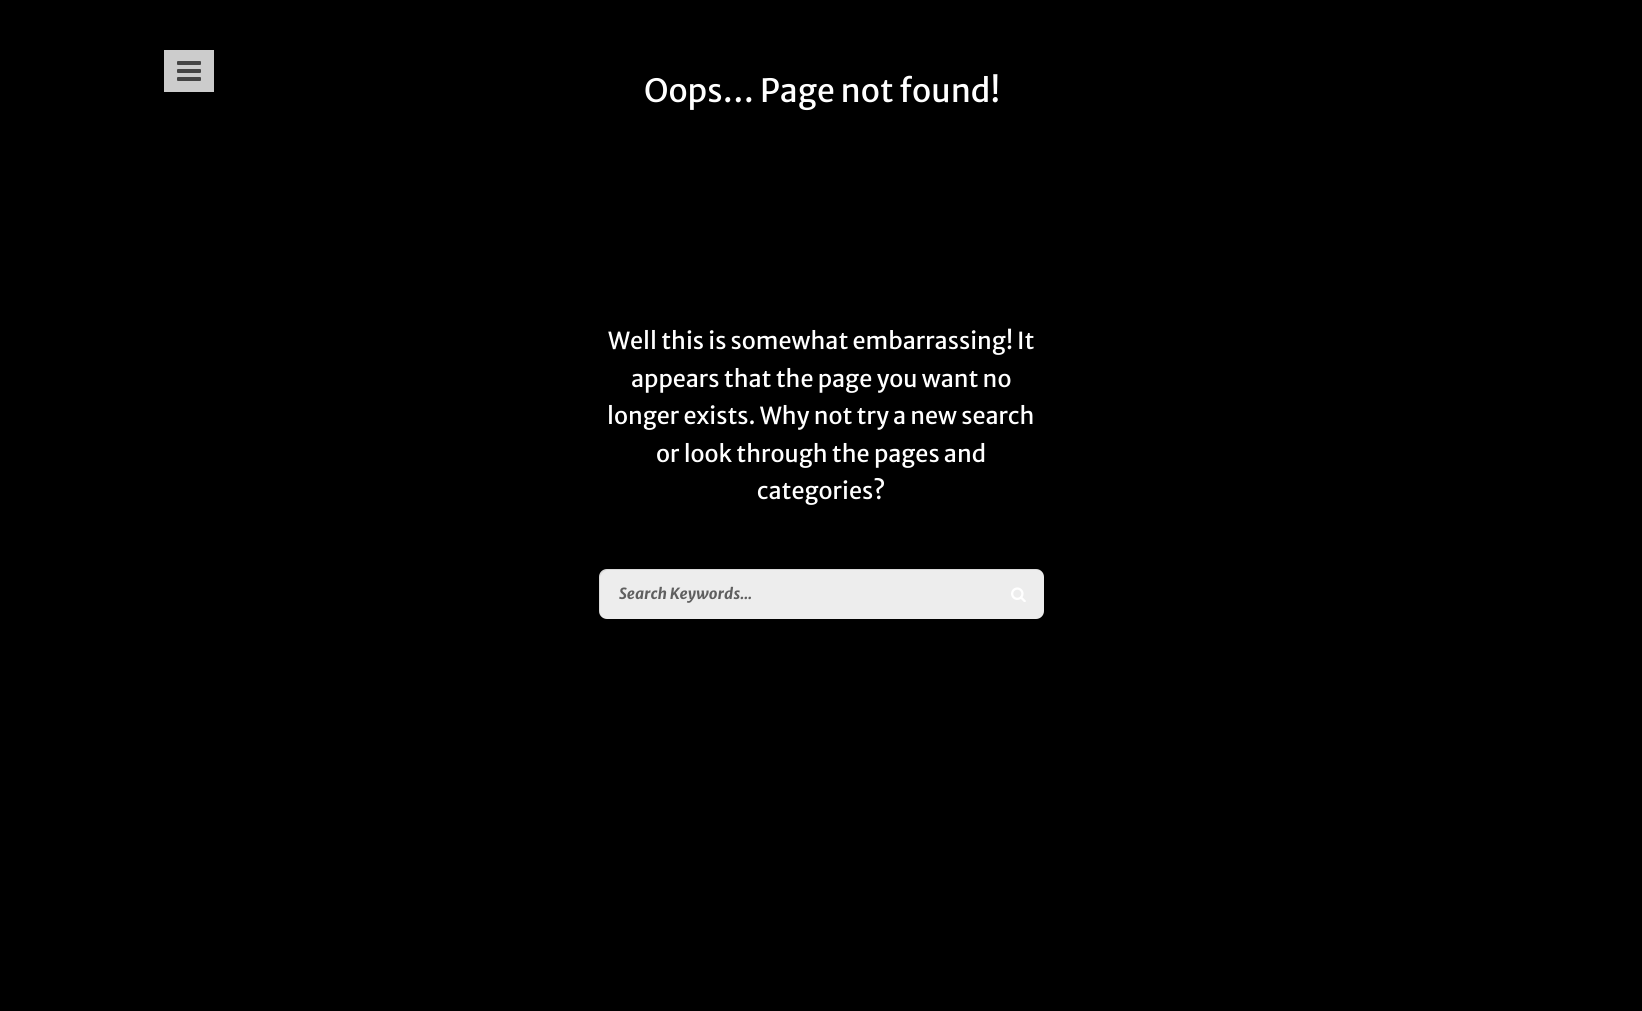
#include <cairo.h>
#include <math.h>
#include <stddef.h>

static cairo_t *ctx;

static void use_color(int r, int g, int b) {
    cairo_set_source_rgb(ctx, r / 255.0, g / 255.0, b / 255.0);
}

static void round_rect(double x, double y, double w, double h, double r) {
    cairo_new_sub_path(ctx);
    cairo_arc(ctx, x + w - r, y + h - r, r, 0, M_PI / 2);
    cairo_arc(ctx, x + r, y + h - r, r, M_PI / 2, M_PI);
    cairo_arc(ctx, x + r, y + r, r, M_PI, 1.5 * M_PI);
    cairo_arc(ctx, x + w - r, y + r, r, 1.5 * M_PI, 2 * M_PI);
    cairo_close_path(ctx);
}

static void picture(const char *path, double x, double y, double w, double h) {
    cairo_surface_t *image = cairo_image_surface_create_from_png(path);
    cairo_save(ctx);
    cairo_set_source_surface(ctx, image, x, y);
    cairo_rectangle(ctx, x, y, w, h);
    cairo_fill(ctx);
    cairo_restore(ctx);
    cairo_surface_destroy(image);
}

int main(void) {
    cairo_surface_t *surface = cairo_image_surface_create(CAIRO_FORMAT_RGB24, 1642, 1011);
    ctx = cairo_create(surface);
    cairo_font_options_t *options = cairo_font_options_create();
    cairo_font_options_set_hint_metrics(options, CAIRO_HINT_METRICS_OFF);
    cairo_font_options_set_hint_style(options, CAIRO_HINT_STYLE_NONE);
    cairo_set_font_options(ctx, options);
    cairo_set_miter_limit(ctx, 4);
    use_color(0, 0, 0);
    cairo_paint(ctx);
    use_color(204, 204, 204);
    cairo_rectangle(ctx, 164, 50, 50, 42);
    cairo_fill(ctx);
    picture("img1.png", 177, 61, 24, 20);
    cairo_select_font_face(ctx, "Merriweather Sans", CAIRO_FONT_SLANT_NORMAL, CAIRO_FONT_WEIGHT_NORMAL);
    cairo_set_font_size(ctx, 32);
    use_color(255, 255, 255);
    cairo_move_to(ctx, 644, 102);
    cairo_show_text(ctx, "Oops… Page not found!");
    cairo_set_font_size(ctx, 23.4);
    cairo_move_to(ctx, 608, 349);
    cairo_show_text(ctx, "Well this is somewhat embarrassing! It");
    cairo_move_to(ctx, 631, 387);
    cairo_show_text(ctx, "appears that the page you want no");
    cairo_move_to(ctx, 607, 424);
    cairo_show_text(ctx, "longer exists. Why not try a new search");
    cairo_move_to(ctx, 656, 462);
    cairo_show_text(ctx, "or look through the pages and");
    cairo_move_to(ctx, 757, 499);
    cairo_show_text(ctx, "categories?");
    use_color(237, 237, 237);
    round_rect(599, 569, 445, 50, 8);
    cairo_fill(ctx);
    cairo_set_source_rgba(ctx, 0, 0, 0, 0.08);
    cairo_new_path(ctx);
    cairo_move_to(ctx, 608, 570);
    cairo_line_to(ctx, 1037, 570);
    cairo_curve_to(ctx, 1039, 570, 1041, 571, 1043, 573);
    cairo_curve_to(ctx, 1041, 571, 1039, 569, 1036, 569);
    cairo_line_to(ctx, 607, 569);
    cairo_curve_to(ctx, 603, 569, 599, 573, 599, 577);
    cairo_line_to(ctx, 599, 611);
    cairo_curve_to(ctx, 599, 614, 601, 616, 603, 618);
    cairo_curve_to(ctx, 601, 616, 600, 614, 600, 612);
    cairo_line_to(ctx, 600, 578);
    cairo_curve_to(ctx, 600, 574, 604, 570, 608, 570);
    cairo_close_path(ctx);
    cairo_fill(ctx);
    cairo_select_font_face(ctx, "Merriweather Sans", CAIRO_FONT_SLANT_ITALIC, CAIRO_FONT_WEIGHT_BOLD);
    cairo_set_font_size(ctx, 15.25);
    use_color(95, 95, 95);
    cairo_move_to(ctx, 619, 599);
    cairo_show_text(ctx, "Search Keywords…");
    picture("img2.png", 1011, 587, 15, 15);
    cairo_surface_write_to_png(surface, "result.png");
    cairo_font_options_destroy(options);
    cairo_destroy(ctx);
    cairo_surface_destroy(surface);
    return 0;
}
